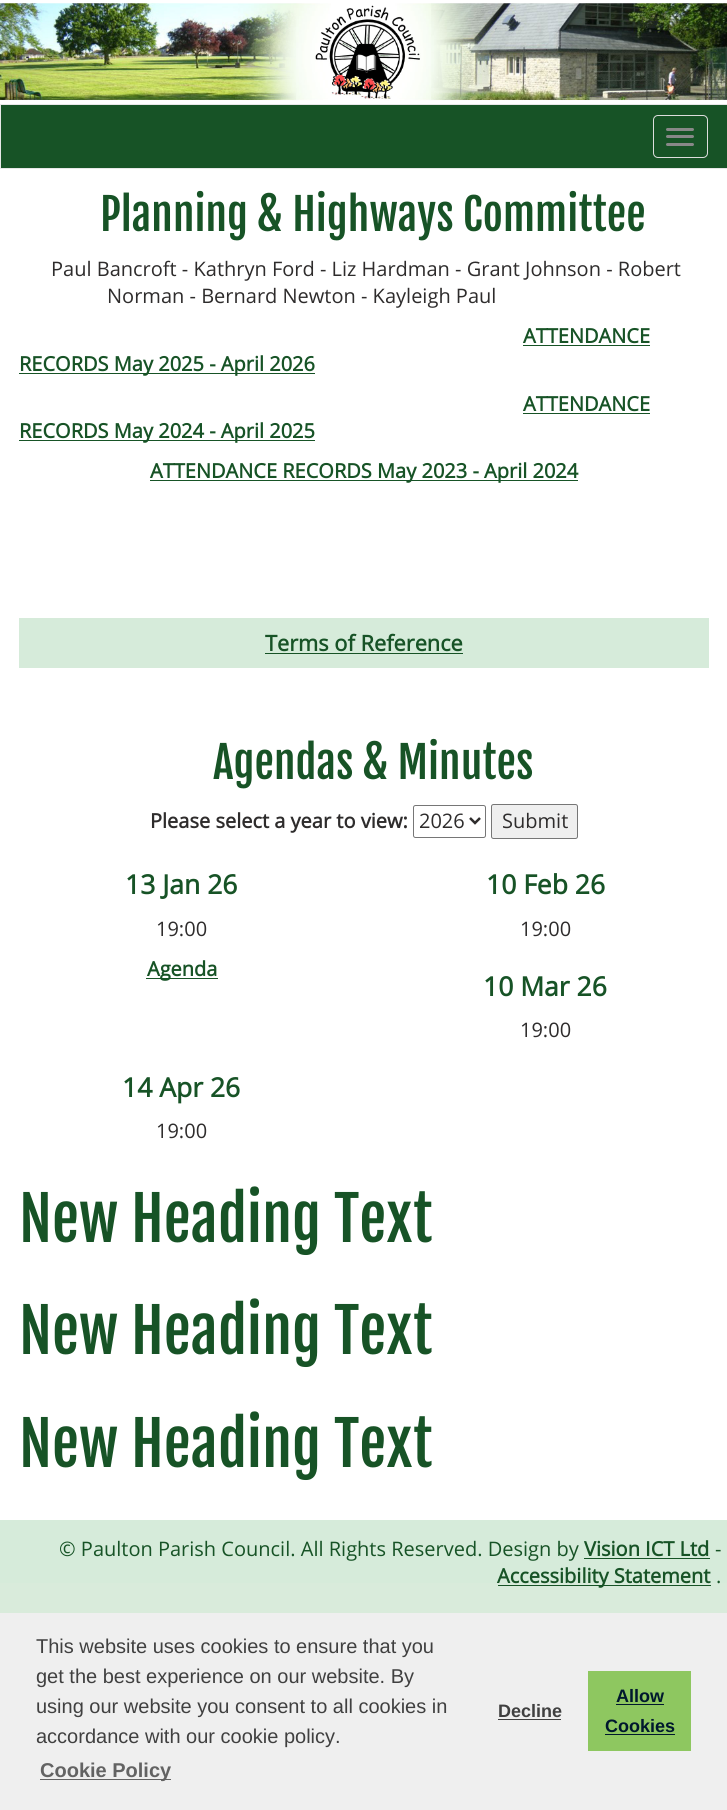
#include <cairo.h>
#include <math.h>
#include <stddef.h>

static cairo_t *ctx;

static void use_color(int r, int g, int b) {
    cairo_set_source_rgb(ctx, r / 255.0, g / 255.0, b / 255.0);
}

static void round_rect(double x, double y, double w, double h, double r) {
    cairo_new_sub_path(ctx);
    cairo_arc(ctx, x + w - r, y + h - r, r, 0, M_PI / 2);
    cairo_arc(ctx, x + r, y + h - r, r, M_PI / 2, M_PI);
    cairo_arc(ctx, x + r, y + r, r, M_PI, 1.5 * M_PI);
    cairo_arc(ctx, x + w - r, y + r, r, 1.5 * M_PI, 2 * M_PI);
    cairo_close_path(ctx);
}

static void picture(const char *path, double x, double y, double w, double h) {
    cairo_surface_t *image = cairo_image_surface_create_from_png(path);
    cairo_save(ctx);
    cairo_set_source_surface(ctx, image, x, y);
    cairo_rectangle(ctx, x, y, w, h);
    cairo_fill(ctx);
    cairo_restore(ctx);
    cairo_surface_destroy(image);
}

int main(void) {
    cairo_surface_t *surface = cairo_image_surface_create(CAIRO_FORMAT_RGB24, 727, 1810);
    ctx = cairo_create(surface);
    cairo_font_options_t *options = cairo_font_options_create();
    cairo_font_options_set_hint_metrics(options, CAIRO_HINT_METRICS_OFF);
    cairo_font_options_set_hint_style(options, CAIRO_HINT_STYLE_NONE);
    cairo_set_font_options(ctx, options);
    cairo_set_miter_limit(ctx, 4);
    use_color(217, 235, 219);
    cairo_paint(ctx);
    use_color(255, 255, 255);
    cairo_rectangle(ctx, 0, 0, 727, 104);
    cairo_fill(ctx);
    picture("img1.png", 0, 3, 727, 98);
    use_color(23, 83, 38);
    cairo_rectangle(ctx, 0.5, 104.5, 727, 64);
    cairo_fill_preserve(ctx);
    use_color(231, 231, 231);
    cairo_set_line_width(ctx, 1);
    cairo_stroke(ctx);
    round_rect(653.5, 115.5, 54, 42, 4.5);
    use_color(221, 221, 221);
    cairo_stroke(ctx);
    use_color(136, 136, 136);
    round_rect(666, 128, 28, 3, 1.5);
    cairo_fill(ctx);
    round_rect(666, 135, 28, 3, 1.5);
    cairo_fill(ctx);
    round_rect(666, 143, 28, 3, 1.5);
    cairo_fill(ctx);
    use_color(255, 255, 255);
    cairo_rectangle(ctx, 0, 169, 727, 1351);
    cairo_fill(ctx);
    cairo_select_font_face(ctx, "Fjalla One", CAIRO_FONT_SLANT_NORMAL, CAIRO_FONT_WEIGHT_NORMAL);
    cairo_set_font_size(ctx, 43.3);
    use_color(23, 83, 38);
    cairo_move_to(ctx, 100, 231);
    cairo_show_text(ctx, "Planning & Highways Committee");
    cairo_select_font_face(ctx, "Open Sans", CAIRO_FONT_SLANT_NORMAL, CAIRO_FONT_WEIGHT_NORMAL);
    cairo_set_font_size(ctx, 20);
    use_color(46, 44, 44);
    cairo_move_to(ctx, 51, 276);
    cairo_show_text(ctx, "Paul Bancroft - Kathryn Ford - Liz Hardman - Grant Johnson - Robert");
    cairo_move_to(ctx, 107, 303);
    cairo_show_text(ctx, "Norman - Bernard Newton - Kayleigh Paul");
    cairo_select_font_face(ctx, "Open Sans", CAIRO_FONT_SLANT_NORMAL, CAIRO_FONT_WEIGHT_BOLD);
    use_color(23, 83, 38);
    cairo_move_to(ctx, 523, 343);
    cairo_show_text(ctx, "ATTENDANCE");
    cairo_rectangle(ctx, 523, 345, 127, 1);
    cairo_fill(ctx);
    cairo_rectangle(ctx, 19, 373, 296, 1);
    cairo_fill(ctx);
    cairo_move_to(ctx, 19, 371);
    cairo_show_text(ctx, "RECORDS May 2025 - April 2026");
    cairo_move_to(ctx, 523, 411);
    cairo_show_text(ctx, "ATTENDANCE");
    cairo_rectangle(ctx, 523, 413, 127, 1);
    cairo_fill(ctx);
    cairo_rectangle(ctx, 19, 440, 296, 1);
    cairo_fill(ctx);
    cairo_move_to(ctx, 19, 438);
    cairo_show_text(ctx, "RECORDS May 2024 - April 2025");
    cairo_rectangle(ctx, 150, 480, 428, 1);
    cairo_fill(ctx);
    cairo_move_to(ctx, 150, 478);
    cairo_show_text(ctx, "ATTENDANCE RECORDS May 2023 - April 2024");
    use_color(214, 235, 218);
    cairo_rectangle(ctx, 19, 618, 690, 50);
    cairo_fill(ctx);
    cairo_set_font_size(ctx, 21.75);
    use_color(23, 83, 38);
    cairo_move_to(ctx, 265, 651);
    cairo_show_text(ctx, "Terms of Reference");
    cairo_rectangle(ctx, 265, 653, 198, 1);
    cairo_fill(ctx);
    cairo_select_font_face(ctx, "Fjalla One", CAIRO_FONT_SLANT_NORMAL, CAIRO_FONT_WEIGHT_NORMAL);
    cairo_set_font_size(ctx, 43.3);
    cairo_move_to(ctx, 213, 779);
    cairo_show_text(ctx, "Agendas & Minutes");
    cairo_select_font_face(ctx, "Open Sans", CAIRO_FONT_SLANT_NORMAL, CAIRO_FONT_WEIGHT_BOLD);
    cairo_set_font_size(ctx, 20);
    use_color(46, 44, 44);
    cairo_move_to(ctx, 150, 828);
    cairo_show_text(ctx, "Please select a year to view:");
    round_rect(413.5, 805.5, 72, 32, 2);
    use_color(118, 118, 118);
    cairo_stroke(ctx);
    cairo_new_path(ctx);
    cairo_move_to(ctx, 470, 818);
    cairo_line_to(ctx, 475, 823);
    cairo_line_to(ctx, 480, 818);
    use_color(46, 44, 44);
    cairo_set_line_width(ctx, 2.5);
    cairo_stroke(ctx);
    cairo_select_font_face(ctx, "Open Sans", CAIRO_FONT_SLANT_NORMAL, CAIRO_FONT_WEIGHT_NORMAL);
    cairo_move_to(ctx, 419, 828);
    cairo_show_text(ctx, "2026");
    use_color(239, 239, 239);
    round_rect(491.5, 804.5, 86, 34, 2);
    cairo_fill_preserve(ctx);
    use_color(118, 118, 118);
    cairo_set_line_width(ctx, 1);
    cairo_stroke(ctx);
    use_color(46, 44, 44);
    cairo_move_to(ctx, 502, 828);
    cairo_show_text(ctx, "Submit");
    cairo_select_font_face(ctx, "Open Sans", CAIRO_FONT_SLANT_NORMAL, CAIRO_FONT_WEIGHT_BOLD);
    cairo_set_font_size(ctx, 26.5);
    use_color(23, 83, 38);
    cairo_move_to(ctx, 125, 894);
    cairo_show_text(ctx, "13 Jan 26");
    cairo_select_font_face(ctx, "Open Sans", CAIRO_FONT_SLANT_NORMAL, CAIRO_FONT_WEIGHT_NORMAL);
    cairo_set_font_size(ctx, 20);
    use_color(46, 44, 44);
    cairo_move_to(ctx, 156, 936);
    cairo_show_text(ctx, "19:00");
    use_color(23, 83, 38);
    cairo_rectangle(ctx, 146, 978, 72, 1);
    cairo_fill(ctx);
    cairo_select_font_face(ctx, "Open Sans", CAIRO_FONT_SLANT_NORMAL, CAIRO_FONT_WEIGHT_BOLD);
    cairo_move_to(ctx, 147, 976);
    cairo_show_text(ctx, "Agenda");
    cairo_set_font_size(ctx, 26.5);
    cairo_move_to(ctx, 486, 894);
    cairo_show_text(ctx, "10 Feb 26");
    cairo_select_font_face(ctx, "Open Sans", CAIRO_FONT_SLANT_NORMAL, CAIRO_FONT_WEIGHT_NORMAL);
    cairo_set_font_size(ctx, 20);
    use_color(46, 44, 44);
    cairo_move_to(ctx, 520, 936);
    cairo_show_text(ctx, "19:00");
    cairo_select_font_face(ctx, "Open Sans", CAIRO_FONT_SLANT_NORMAL, CAIRO_FONT_WEIGHT_BOLD);
    cairo_set_font_size(ctx, 26.5);
    use_color(23, 83, 38);
    cairo_move_to(ctx, 483, 996);
    cairo_show_text(ctx, "10 Mar 26");
    cairo_select_font_face(ctx, "Open Sans", CAIRO_FONT_SLANT_NORMAL, CAIRO_FONT_WEIGHT_NORMAL);
    cairo_set_font_size(ctx, 20);
    use_color(46, 44, 44);
    cairo_move_to(ctx, 520, 1037);
    cairo_show_text(ctx, "19:00");
    cairo_select_font_face(ctx, "Open Sans", CAIRO_FONT_SLANT_NORMAL, CAIRO_FONT_WEIGHT_BOLD);
    cairo_set_font_size(ctx, 26.5);
    use_color(23, 83, 38);
    cairo_move_to(ctx, 122, 1097);
    cairo_show_text(ctx, "14 Apr 26");
    cairo_select_font_face(ctx, "Open Sans", CAIRO_FONT_SLANT_NORMAL, CAIRO_FONT_WEIGHT_NORMAL);
    cairo_set_font_size(ctx, 20);
    use_color(46, 44, 44);
    cairo_move_to(ctx, 156, 1138);
    cairo_show_text(ctx, "19:00");
    cairo_select_font_face(ctx, "Fjalla One", CAIRO_FONT_SLANT_NORMAL, CAIRO_FONT_WEIGHT_NORMAL);
    cairo_set_font_size(ctx, 60);
    use_color(23, 83, 38);
    cairo_move_to(ctx, 19, 1242);
    cairo_show_text(ctx, "New Heading Text");
    cairo_move_to(ctx, 19, 1354);
    cairo_show_text(ctx, "New Heading Text");
    cairo_move_to(ctx, 19, 1467);
    cairo_show_text(ctx, "New Heading Text");
    use_color(214, 235, 218);
    cairo_rectangle(ctx, 0, 1520, 727, 63);
    cairo_fill(ctx);
    cairo_select_font_face(ctx, "Open Sans", CAIRO_FONT_SLANT_NORMAL, CAIRO_FONT_WEIGHT_NORMAL);
    cairo_set_font_size(ctx, 20);
    use_color(23, 83, 38);
    cairo_move_to(ctx, 59, 1556);
    cairo_show_text(ctx, "© Paulton Parish Council. All Rights Reserved. Design by");
    cairo_select_font_face(ctx, "Open Sans", CAIRO_FONT_SLANT_NORMAL, CAIRO_FONT_WEIGHT_BOLD);
    cairo_move_to(ctx, 584, 1556);
    cairo_show_text(ctx, "Vision ICT Ltd");
    cairo_rectangle(ctx, 584, 1558, 126, 1);
    cairo_fill(ctx);
    cairo_select_font_face(ctx, "Open Sans", CAIRO_FONT_SLANT_NORMAL, CAIRO_FONT_WEIGHT_NORMAL);
    cairo_move_to(ctx, 715, 1556);
    cairo_show_text(ctx, "-");
    cairo_rectangle(ctx, 498, 1585, 213, 1);
    cairo_fill(ctx);
    cairo_select_font_face(ctx, "Open Sans", CAIRO_FONT_SLANT_NORMAL, CAIRO_FONT_WEIGHT_BOLD);
    cairo_move_to(ctx, 497, 1583);
    cairo_show_text(ctx, "Accessibility Statement");
    cairo_select_font_face(ctx, "Open Sans", CAIRO_FONT_SLANT_NORMAL, CAIRO_FONT_WEIGHT_NORMAL);
    cairo_move_to(ctx, 716, 1583);
    cairo_show_text(ctx, ".");
    use_color(239, 239, 239);
    cairo_rectangle(ctx, 0, 1613, 727, 197);
    cairo_fill(ctx);
    cairo_select_font_face(ctx, "Liberation Sans", CAIRO_FONT_SLANT_NORMAL, CAIRO_FONT_WEIGHT_NORMAL);
    use_color(64, 64, 64);
    cairo_move_to(ctx, 36, 1653);
    cairo_show_text(ctx, "This website uses cookies to ensure that you");
    cairo_move_to(ctx, 36, 1683);
    cairo_show_text(ctx, "get the best experience on our website. By");
    cairo_move_to(ctx, 36, 1713);
    cairo_show_text(ctx, "using our website you consent to all cookies in");
    cairo_move_to(ctx, 36, 1743);
    cairo_show_text(ctx, "accordance with our cookie policy.");
    use_color(99, 99, 99);
    cairo_rectangle(ctx, 40, 1779, 131, 1);
    cairo_fill(ctx);
    cairo_select_font_face(ctx, "Liberation Sans", CAIRO_FONT_SLANT_NORMAL, CAIRO_FONT_WEIGHT_BOLD);
    cairo_move_to(ctx, 40, 1777);
    cairo_show_text(ctx, "Cookie Policy");
    cairo_set_font_size(ctx, 18);
    use_color(64, 64, 64);
    cairo_move_to(ctx, 498, 1717);
    cairo_show_text(ctx, "Decline");
    cairo_rectangle(ctx, 498, 1719, 63, 1);
    cairo_fill(ctx);
    use_color(142, 199, 96);
    cairo_rectangle(ctx, 588, 1671, 103, 80);
    cairo_fill(ctx);
    use_color(0, 24, 46);
    cairo_move_to(ctx, 616, 1702);
    cairo_show_text(ctx, "Allow");
    cairo_rectangle(ctx, 616, 1704, 48, 1);
    cairo_fill(ctx);
    cairo_move_to(ctx, 605, 1732);
    cairo_show_text(ctx, "Cookies");
    cairo_rectangle(ctx, 605, 1734, 70, 1);
    cairo_fill(ctx);
    cairo_surface_write_to_png(surface, "result.png");
    cairo_font_options_destroy(options);
    cairo_destroy(ctx);
    cairo_surface_destroy(surface);
    return 0;
}
